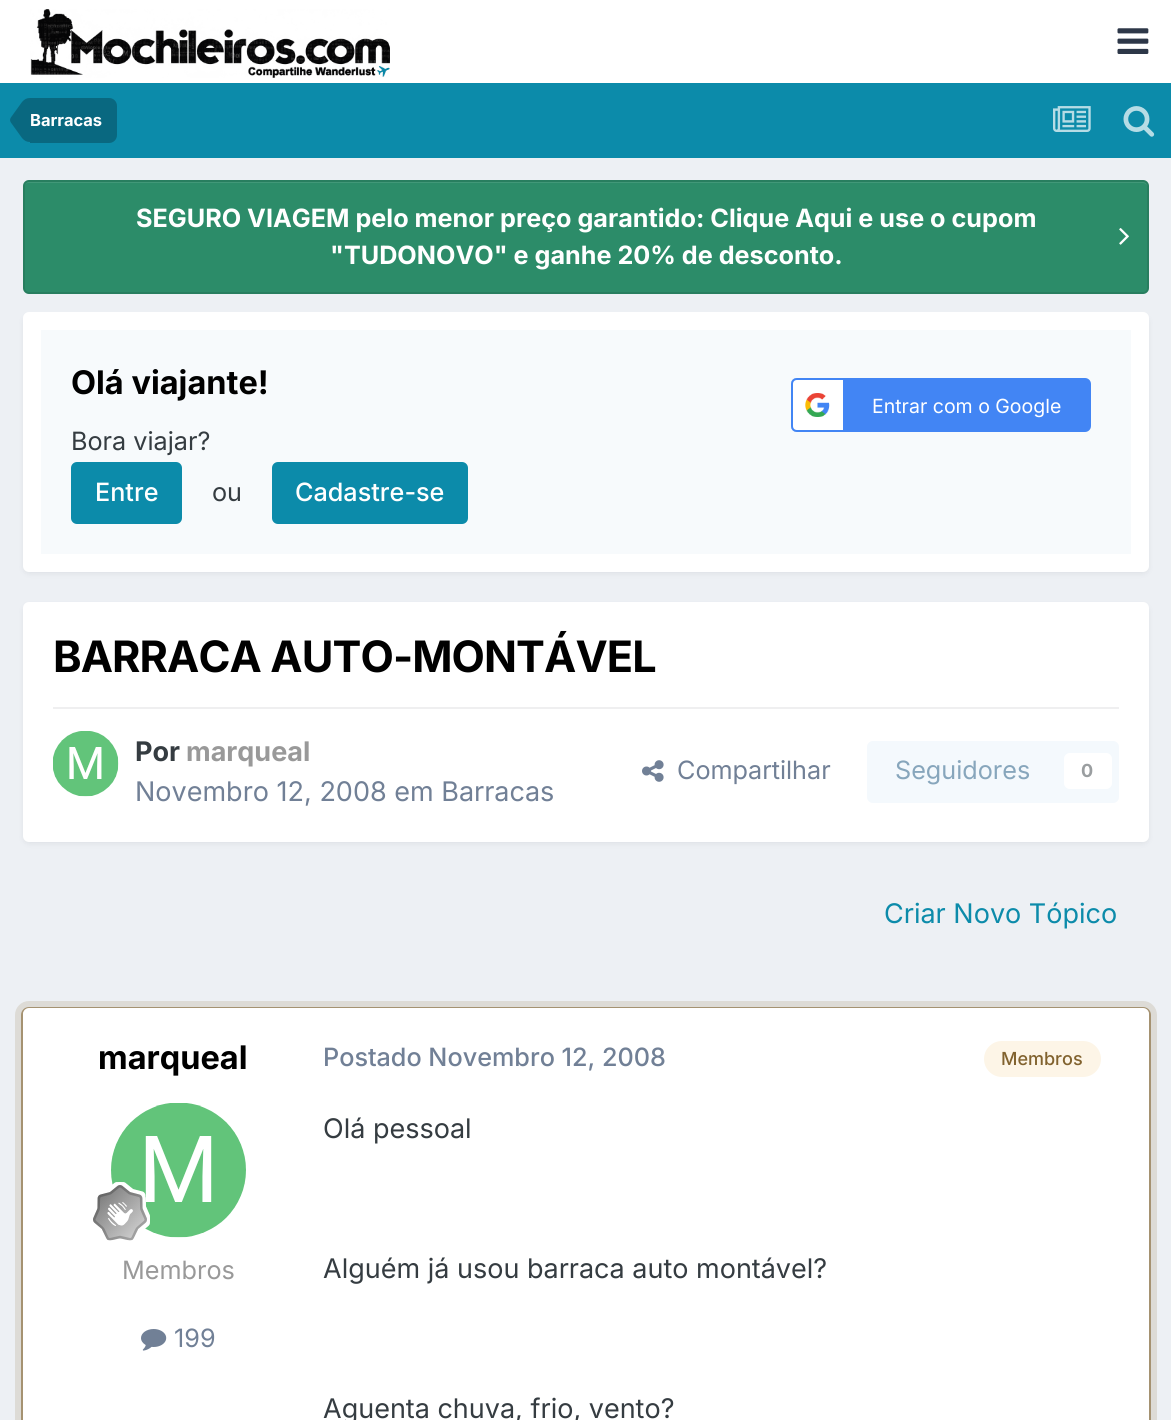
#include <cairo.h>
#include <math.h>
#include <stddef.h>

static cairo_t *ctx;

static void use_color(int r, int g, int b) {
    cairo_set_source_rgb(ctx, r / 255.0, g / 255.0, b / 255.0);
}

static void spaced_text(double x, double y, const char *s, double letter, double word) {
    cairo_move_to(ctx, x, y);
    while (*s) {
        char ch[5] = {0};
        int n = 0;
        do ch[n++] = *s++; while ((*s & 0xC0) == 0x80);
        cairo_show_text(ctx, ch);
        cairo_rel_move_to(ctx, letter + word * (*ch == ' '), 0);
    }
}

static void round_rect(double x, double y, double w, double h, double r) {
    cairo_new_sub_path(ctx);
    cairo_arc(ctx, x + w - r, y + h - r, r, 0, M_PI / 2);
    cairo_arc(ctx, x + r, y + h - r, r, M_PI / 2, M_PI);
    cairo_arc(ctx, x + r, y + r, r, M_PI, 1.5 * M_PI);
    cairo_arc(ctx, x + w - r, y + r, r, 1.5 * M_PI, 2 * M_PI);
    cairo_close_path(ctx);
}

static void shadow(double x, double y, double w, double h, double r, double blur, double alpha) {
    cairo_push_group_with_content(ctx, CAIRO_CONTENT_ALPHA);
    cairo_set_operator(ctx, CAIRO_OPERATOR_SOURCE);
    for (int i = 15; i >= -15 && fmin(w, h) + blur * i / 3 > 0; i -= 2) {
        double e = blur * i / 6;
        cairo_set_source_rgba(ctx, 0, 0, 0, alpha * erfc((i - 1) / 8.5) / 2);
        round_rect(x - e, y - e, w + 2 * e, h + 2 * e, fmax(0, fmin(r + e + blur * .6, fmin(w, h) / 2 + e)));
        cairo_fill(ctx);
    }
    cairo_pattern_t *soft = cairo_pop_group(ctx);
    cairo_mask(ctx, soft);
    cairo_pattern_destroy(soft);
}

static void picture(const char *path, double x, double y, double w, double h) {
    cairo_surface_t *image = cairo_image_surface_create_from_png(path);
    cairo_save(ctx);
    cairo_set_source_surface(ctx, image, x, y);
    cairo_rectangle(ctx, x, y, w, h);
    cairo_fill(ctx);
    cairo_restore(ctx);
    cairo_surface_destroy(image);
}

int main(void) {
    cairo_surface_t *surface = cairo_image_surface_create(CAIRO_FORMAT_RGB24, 1171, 1420);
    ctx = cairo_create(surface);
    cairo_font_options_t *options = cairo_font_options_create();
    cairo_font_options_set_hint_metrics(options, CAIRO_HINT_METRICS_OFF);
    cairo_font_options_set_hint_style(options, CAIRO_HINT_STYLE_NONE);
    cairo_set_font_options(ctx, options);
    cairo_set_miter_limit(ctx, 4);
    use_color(237, 240, 244);
    cairo_paint(ctx);
    use_color(255, 255, 255);
    cairo_rectangle(ctx, 0, 0, 1171, 83);
    cairo_fill(ctx);
    picture("img1.png", 30, 9, 360, 69);
    picture("img2.png", 1117, 28, 32, 26);
    use_color(12, 139, 170);
    cairo_rectangle(ctx, 0, 83, 1171, 75);
    cairo_fill(ctx);
    use_color(9, 104, 128);
    cairo_new_path(ctx);
    cairo_move_to(ctx, 30, 98);
    cairo_line_to(ctx, 109, 98);
    cairo_curve_to(ctx, 113.5, 98, 117, 101.5, 117, 106);
    cairo_line_to(ctx, 117, 135);
    cairo_curve_to(ctx, 117, 139.5, 113.5, 143, 109, 143);
    cairo_line_to(ctx, 30, 143);
    cairo_close_path(ctx);
    cairo_fill(ctx);
    cairo_new_path(ctx);
    cairo_move_to(ctx, 30, 120);
    cairo_line_to(ctx, 30, 142);
    cairo_curve_to(ctx, 27, 142, 24.5, 141, 22, 138);
    cairo_line_to(ctx, 10.5, 122);
    cairo_line_to(ctx, 10, 120);
    cairo_close_path(ctx);
    cairo_move_to(ctx, 30, 120);
    cairo_line_to(ctx, 10, 120);
    cairo_line_to(ctx, 10.5, 118);
    cairo_line_to(ctx, 22, 102);
    cairo_curve_to(ctx, 24.5, 99, 27, 98, 30, 98);
    cairo_close_path(ctx);
    cairo_fill(ctx);
    cairo_select_font_face(ctx, "Inter", CAIRO_FONT_SLANT_NORMAL, CAIRO_FONT_WEIGHT_BOLD);
    cairo_set_font_size(ctx, 16.5);
    use_color(255, 255, 255);
    cairo_move_to(ctx, 30, 126);
    cairo_show_text(ctx, "Barracas");
    picture("img3.png", 1053, 106, 38, 26);
    picture("img4.png", 1123, 106, 32, 31);
    use_color(44, 140, 105);
    round_rect(23, 180, 1126, 114, 6);
    cairo_fill(ctx);
    use_color(65, 152, 120);
    cairo_new_path(ctx);
    cairo_move_to(ctx, 28, 183);
    cairo_line_to(ctx, 1143, 183);
    cairo_curve_to(ctx, 1145, 183, 1148, 185, 1148, 188);
    cairo_curve_to(ctx, 1148, 185, 1146, 182, 1143, 182);
    cairo_line_to(ctx, 29, 182);
    cairo_curve_to(ctx, 26, 182, 24, 185, 24, 188);
    cairo_curve_to(ctx, 24, 185, 26, 183, 28, 183);
    cairo_close_path(ctx);
    cairo_fill(ctx);
    round_rect(24, 181, 1124, 112, 5);
    cairo_set_source_rgba(ctx, 0, 0, 0, 0.1);
    cairo_stroke(ctx);
    cairo_set_font_size(ctx, 25.2);
    use_color(255, 255, 255);
    cairo_move_to(ctx, 136, 227);
    cairo_show_text(ctx, "SEGURO VIAGEM pelo menor preço garantido: Clique Aqui e use o cupom");
    picture("img5.png", 1119, 228, 10, 17);
    cairo_move_to(ctx, 330, 264);
    cairo_show_text(ctx, "\"TUDONOVO\" e ganhe 20% de desconto.");
    use_color(45, 55, 72);
    shadow(24, 317, 1124, 256, 5, 3, 0.1);
    use_color(255, 255, 255);
    round_rect(23, 312, 1126, 260, 6);
    cairo_fill(ctx);
    use_color(247, 250, 252);
    cairo_rectangle(ctx, 41, 330, 1090, 224);
    cairo_fill(ctx);
    cairo_set_font_size(ctx, 32.5);
    use_color(0, 0, 0);
    cairo_move_to(ctx, 71, 394);
    cairo_show_text(ctx, "Olá viajante!");
    cairo_select_font_face(ctx, "Inter", CAIRO_FONT_SLANT_NORMAL, CAIRO_FONT_WEIGHT_NORMAL);
    cairo_set_font_size(ctx, 25.2);
    use_color(53, 60, 65);
    cairo_move_to(ctx, 71, 450);
    cairo_show_text(ctx, "Bora viajar?");
    use_color(12, 139, 170);
    round_rect(71, 462, 111, 62, 6);
    cairo_fill(ctx);
    cairo_select_font_face(ctx, "Inter Medium", CAIRO_FONT_SLANT_NORMAL, CAIRO_FONT_WEIGHT_NORMAL);
    use_color(255, 255, 255);
    cairo_move_to(ctx, 95, 501);
    cairo_show_text(ctx, "Entre");
    cairo_select_font_face(ctx, "Inter", CAIRO_FONT_SLANT_NORMAL, CAIRO_FONT_WEIGHT_NORMAL);
    use_color(53, 60, 65);
    cairo_move_to(ctx, 212, 501);
    cairo_show_text(ctx, "ou");
    use_color(12, 139, 170);
    round_rect(272, 462, 196, 62, 6);
    cairo_fill(ctx);
    cairo_select_font_face(ctx, "Inter Medium", CAIRO_FONT_SLANT_NORMAL, CAIRO_FONT_WEIGHT_NORMAL);
    use_color(255, 255, 255);
    cairo_move_to(ctx, 295, 501);
    cairo_show_text(ctx, "Cadastre-se");
    use_color(66, 133, 244);
    round_rect(791, 378, 300, 54, 6);
    cairo_fill(ctx);
    use_color(255, 255, 255);
    cairo_new_path(ctx);
    cairo_move_to(ctx, 797, 378);
    cairo_line_to(ctx, 845, 378);
    cairo_line_to(ctx, 845, 432);
    cairo_line_to(ctx, 797, 432);
    cairo_curve_to(ctx, 793.5, 432, 791, 429.5, 791, 426);
    cairo_line_to(ctx, 791, 384);
    cairo_curve_to(ctx, 791, 380.5, 793.5, 378, 797, 378);
    cairo_close_path(ctx);
    cairo_fill(ctx);
    picture("img6.png", 805, 393, 25, 24);
    cairo_new_path(ctx);
    cairo_move_to(ctx, 797, 379);
    cairo_line_to(ctx, 844, 379);
    cairo_line_to(ctx, 844, 431);
    cairo_line_to(ctx, 797, 431);
    cairo_curve_to(ctx, 794, 431, 792, 429, 792, 426);
    cairo_line_to(ctx, 792, 384);
    cairo_curve_to(ctx, 792, 381, 794, 379, 797, 379);
    cairo_close_path(ctx);
    use_color(66, 133, 244);
    cairo_stroke(ctx);
    cairo_select_font_face(ctx, "Inter", CAIRO_FONT_SLANT_NORMAL, CAIRO_FONT_WEIGHT_NORMAL);
    cairo_set_font_size(ctx, 19.5);
    use_color(255, 255, 255);
    cairo_move_to(ctx, 872, 413);
    cairo_show_text(ctx, "Entrar com o Google");
    use_color(45, 55, 72);
    shadow(24, 606, 1124, 237, 5, 3, 0.1);
    use_color(255, 255, 255);
    round_rect(23, 602, 1126, 240, 6);
    cairo_fill(ctx);
    cairo_select_font_face(ctx, "Inter", CAIRO_FONT_SLANT_NORMAL, CAIRO_FONT_WEIGHT_BOLD);
    cairo_set_font_size(ctx, 43.25);
    use_color(0, 0, 0);
    spaced_text(53, 672, "BARRACA AUTO-MONTÁVEL", -0.9, 0);
    use_color(239, 239, 240);
    cairo_rectangle(ctx, 53, 707, 1066, 2);
    cairo_fill(ctx);
    picture("img7.png", 53, 731, 66, 66);
    cairo_set_font_size(ctx, 27);
    use_color(53, 60, 65);
    cairo_move_to(ctx, 135, 761);
    cairo_show_text(ctx, "Por");
    use_color(153, 153, 153);
    cairo_move_to(ctx, 186, 761);
    cairo_show_text(ctx, "marqueal");
    cairo_select_font_face(ctx, "Inter", CAIRO_FONT_SLANT_NORMAL, CAIRO_FONT_WEIGHT_NORMAL);
    use_color(113, 128, 150);
    cairo_move_to(ctx, 135, 801);
    cairo_show_text(ctx, "Novembro 12, 2008 em Barracas");
    picture("img8.png", 642, 760, 22, 22);
    cairo_set_font_size(ctx, 25.2);
    cairo_move_to(ctx, 677, 779);
    cairo_show_text(ctx, "Compartilhar");
    use_color(244, 249, 253);
    round_rect(867, 741, 252, 62, 6);
    cairo_fill(ctx);
    use_color(135, 166, 188);
    cairo_move_to(ctx, 895, 779);
    cairo_show_text(ctx, "Seguidores");
    use_color(255, 255, 255);
    round_rect(1064, 753, 48, 36, 6);
    cairo_fill(ctx);
    cairo_select_font_face(ctx, "Inter", CAIRO_FONT_SLANT_NORMAL, CAIRO_FONT_WEIGHT_BOLD);
    cairo_set_font_size(ctx, 18);
    use_color(154, 158, 160);
    cairo_move_to(ctx, 1081, 777);
    cairo_show_text(ctx, "0");
    cairo_select_font_face(ctx, "Inter", CAIRO_FONT_SLANT_NORMAL, CAIRO_FONT_WEIGHT_NORMAL);
    cairo_set_font_size(ctx, 27);
    use_color(12, 139, 170);
    cairo_move_to(ctx, 884, 923);
    cairo_show_text(ctx, "Criar Novo Tópico");
    round_rect(19, 1005, 1134, 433, 10);
    use_color(221, 219, 214);
    cairo_set_line_width(ctx, 8);
    cairo_stroke(ctx);
    round_rect(22, 1008, 1128, 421, 7);
    cairo_set_source_rgba(ctx, 0.506, 0.384, 0.18, 0.6);
    cairo_set_line_width(ctx, 2);
    cairo_stroke(ctx);
    use_color(255, 255, 255);
    round_rect(23, 1008, 1126, 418, 6);
    cairo_fill(ctx);
    cairo_select_font_face(ctx, "Inter", CAIRO_FONT_SLANT_NORMAL, CAIRO_FONT_WEIGHT_BOLD);
    cairo_set_font_size(ctx, 32.5);
    use_color(0, 0, 0);
    cairo_move_to(ctx, 98, 1069);
    cairo_show_text(ctx, "marqueal");
    picture("img9.png", 111, 1103, 135, 135);
    picture("img10.png", 93, 1182, 57, 59);
    cairo_select_font_face(ctx, "Inter", CAIRO_FONT_SLANT_NORMAL, CAIRO_FONT_WEIGHT_NORMAL);
    cairo_set_font_size(ctx, 25.2);
    use_color(153, 153, 153);
    cairo_move_to(ctx, 122, 1279);
    cairo_show_text(ctx, "Membros");
    picture("img11.png", 141, 1329, 26, 22);
    use_color(113, 128, 150);
    cairo_move_to(ctx, 174, 1347);
    cairo_show_text(ctx, "199");
    cairo_select_font_face(ctx, "Inter Medium", CAIRO_FONT_SLANT_NORMAL, CAIRO_FONT_WEIGHT_NORMAL);
    cairo_move_to(ctx, 323, 1066);
    cairo_show_text(ctx, "Postado Novembro 12, 2008");
    use_color(253, 245, 231);
    round_rect(984, 1041, 117, 36, 18);
    cairo_fill(ctx);
    cairo_set_font_size(ctx, 18);
    use_color(129, 98, 46);
    cairo_move_to(ctx, 1001, 1065);
    cairo_show_text(ctx, "Membros");
    cairo_select_font_face(ctx, "Inter", CAIRO_FONT_SLANT_NORMAL, CAIRO_FONT_WEIGHT_NORMAL);
    cairo_set_font_size(ctx, 27);
    use_color(53, 60, 65);
    cairo_move_to(ctx, 323, 1138);
    cairo_show_text(ctx, "Olá pessoal");
    cairo_move_to(ctx, 323, 1278);
    cairo_show_text(ctx, "Alguém já usou barraca auto montável?");
    cairo_move_to(ctx, 323, 1418);
    cairo_show_text(ctx, "Aguenta chuva, frio, vento?");
    cairo_surface_write_to_png(surface, "result.png");
    cairo_font_options_destroy(options);
    cairo_destroy(ctx);
    cairo_surface_destroy(surface);
    return 0;
}
